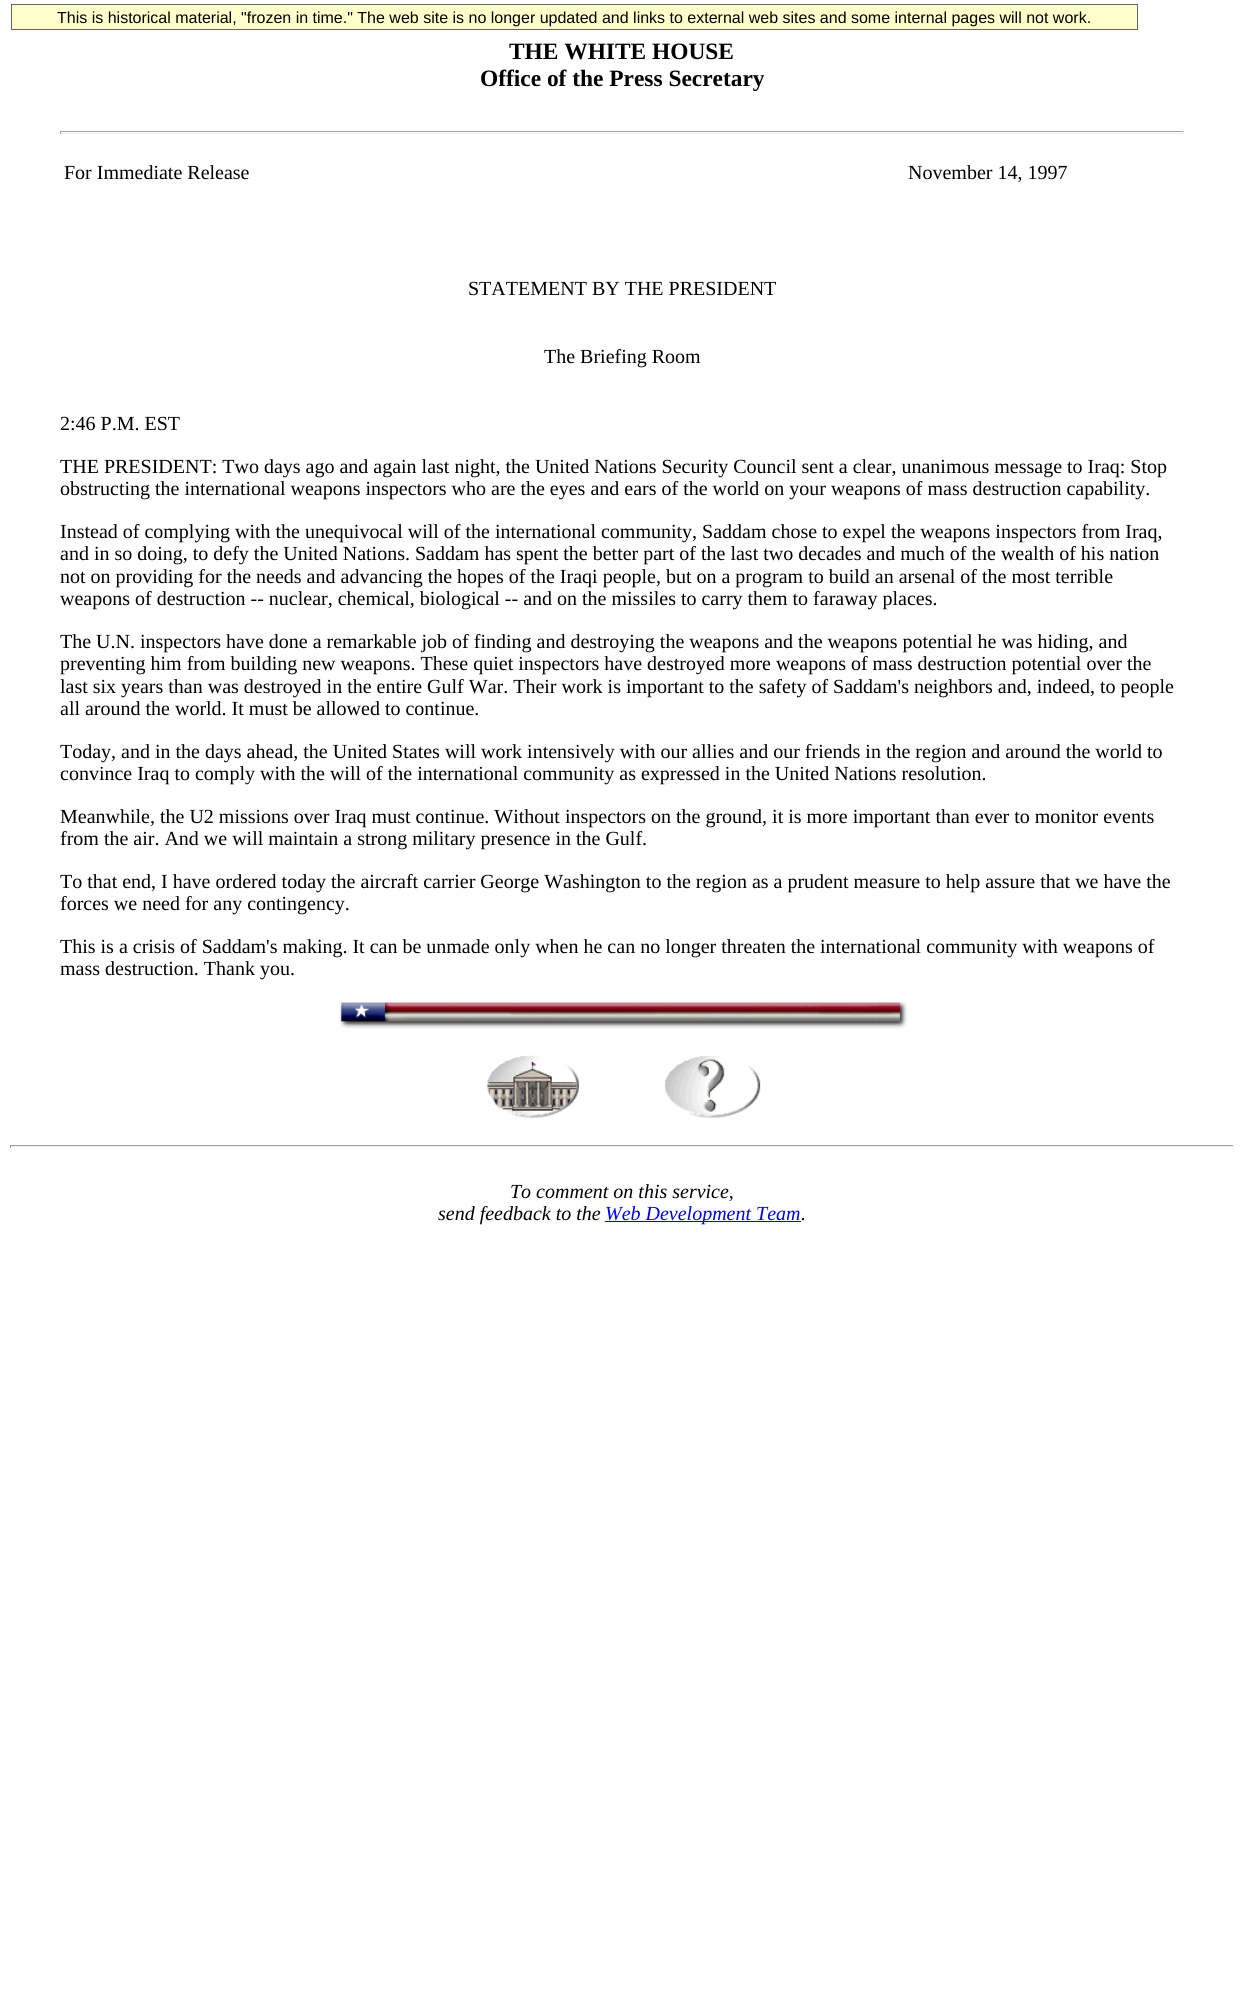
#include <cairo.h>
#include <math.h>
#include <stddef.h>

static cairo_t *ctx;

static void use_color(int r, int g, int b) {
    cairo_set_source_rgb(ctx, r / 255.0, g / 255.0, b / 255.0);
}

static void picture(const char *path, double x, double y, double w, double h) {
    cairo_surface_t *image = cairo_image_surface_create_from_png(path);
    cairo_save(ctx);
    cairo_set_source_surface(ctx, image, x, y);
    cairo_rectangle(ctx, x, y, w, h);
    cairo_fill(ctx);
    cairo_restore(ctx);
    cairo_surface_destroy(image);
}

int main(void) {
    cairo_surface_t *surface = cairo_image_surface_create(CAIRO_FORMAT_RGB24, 1243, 2012);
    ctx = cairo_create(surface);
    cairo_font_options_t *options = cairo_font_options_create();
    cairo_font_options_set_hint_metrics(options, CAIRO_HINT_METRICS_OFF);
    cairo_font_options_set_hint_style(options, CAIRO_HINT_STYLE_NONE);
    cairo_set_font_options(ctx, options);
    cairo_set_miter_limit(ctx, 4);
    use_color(255, 255, 255);
    cairo_paint(ctx);
    use_color(255, 255, 204);
    cairo_rectangle(ctx, 11.5, 4.5, 1126, 25);
    cairo_fill_preserve(ctx);
    use_color(102, 102, 102);
    cairo_set_line_width(ctx, 1);
    cairo_stroke(ctx);
    cairo_select_font_face(ctx, "Liberation Sans", CAIRO_FONT_SLANT_NORMAL, CAIRO_FONT_WEIGHT_NORMAL);
    cairo_set_font_size(ctx, 16);
    use_color(0, 0, 0);
    cairo_move_to(ctx, 57, 23);
    cairo_show_text(ctx, "This is historical material, \"frozen in time.\" The web site is no longer updated and links to external web sites and some internal pages will not work.");
    cairo_select_font_face(ctx, "Liberation Serif", CAIRO_FONT_SLANT_NORMAL, CAIRO_FONT_WEIGHT_BOLD);
    cairo_set_font_size(ctx, 23.4);
    cairo_move_to(ctx, 509, 59);
    cairo_show_text(ctx, "THE WHITE HOUSE");
    cairo_move_to(ctx, 480, 86);
    cairo_show_text(ctx, "Office of the Press Secretary");
    use_color(159, 159, 159);
    cairo_rectangle(ctx, 60, 131, 1124, 1);
    cairo_fill(ctx);
    use_color(238, 238, 238);
    cairo_rectangle(ctx, 1183, 131, 1, 3);
    cairo_fill(ctx);
    cairo_rectangle(ctx, 60, 133, 1124, 1);
    cairo_fill(ctx);
    use_color(159, 159, 159);
    cairo_rectangle(ctx, 60, 131, 1, 3);
    cairo_fill(ctx);
    cairo_select_font_face(ctx, "Liberation Serif", CAIRO_FONT_SLANT_NORMAL, CAIRO_FONT_WEIGHT_NORMAL);
    cairo_set_font_size(ctx, 20);
    use_color(0, 0, 0);
    cairo_move_to(ctx, 64, 179);
    cairo_show_text(ctx, "For Immediate Release");
    cairo_move_to(ctx, 908, 179);
    cairo_show_text(ctx, "November 14, 1997");
    cairo_move_to(ctx, 468, 295);
    cairo_show_text(ctx, "STATEMENT BY THE PRESIDENT");
    cairo_move_to(ctx, 544, 363);
    cairo_show_text(ctx, "The Briefing Room");
    cairo_move_to(ctx, 60, 430);
    cairo_show_text(ctx, "2:46 P.M. EST");
    cairo_move_to(ctx, 60, 473);
    cairo_show_text(ctx, "THE PRESIDENT: Two days ago and again last night, the United Nations Security Council sent a clear, unanimous message to Iraq: Stop");
    cairo_move_to(ctx, 60, 495);
    cairo_show_text(ctx, "obstructing the international weapons inspectors who are the eyes and ears of the world on your weapons of mass destruction capability.");
    cairo_move_to(ctx, 60, 538);
    cairo_show_text(ctx, "Instead of complying with the unequivocal will of the international community, Saddam chose to expel the weapons inspectors from Iraq,");
    cairo_move_to(ctx, 60, 560);
    cairo_show_text(ctx, "and in so doing, to defy the United Nations. Saddam has spent the better part of the last two decades and much of the wealth of his nation");
    cairo_move_to(ctx, 60, 583);
    cairo_show_text(ctx, "not on providing for the needs and advancing the hopes of the Iraqi people, but on a program to build an arsenal of the most terrible");
    cairo_move_to(ctx, 60, 605);
    cairo_show_text(ctx, "weapons of destruction -- nuclear, chemical, biological -- and on the missiles to carry them to faraway places.");
    cairo_move_to(ctx, 60, 648);
    cairo_show_text(ctx, "The U.N. inspectors have done a remarkable job of finding and destroying the weapons and the weapons potential he was hiding, and");
    cairo_move_to(ctx, 60, 670);
    cairo_show_text(ctx, "preventing him from building new weapons. These quiet inspectors have destroyed more weapons of mass destruction potential over the");
    cairo_move_to(ctx, 60, 693);
    cairo_show_text(ctx, "last six years than was destroyed in the entire Gulf War. Their work is important to the safety of Saddam's neighbors and, indeed, to people");
    cairo_move_to(ctx, 60, 715);
    cairo_show_text(ctx, "all around the world. It must be allowed to continue.");
    cairo_move_to(ctx, 60, 758);
    cairo_show_text(ctx, "Today, and in the days ahead, the United States will work intensively with our allies and our friends in the region and around the world to");
    cairo_move_to(ctx, 60, 780);
    cairo_show_text(ctx, "convince Iraq to comply with the will of the international community as expressed in the United Nations resolution.");
    cairo_move_to(ctx, 60, 823);
    cairo_show_text(ctx, "Meanwhile, the U2 missions over Iraq must continue. Without inspectors on the ground, it is more important than ever to monitor events");
    cairo_move_to(ctx, 60, 845);
    cairo_show_text(ctx, "from the air. And we will maintain a strong military presence in the Gulf.");
    cairo_move_to(ctx, 60, 888);
    cairo_show_text(ctx, "To that end, I have ordered today the aircraft carrier George Washington to the region as a prudent measure to help assure that we have the");
    cairo_move_to(ctx, 60, 910);
    cairo_show_text(ctx, "forces we need for any contingency.");
    cairo_move_to(ctx, 60, 953);
    cairo_show_text(ctx, "This is a crisis of Saddam's making. It can be unmade only when he can no longer threaten the international community with weapons of");
    cairo_move_to(ctx, 60, 975);
    cairo_show_text(ctx, "mass destruction. Thank you.");
    picture("img1.png", 339, 1002, 569, 27);
    picture("img2.png", 486, 1055, 93, 63);
    picture("img3.png", 664, 1055, 97, 63);
    use_color(159, 159, 159);
    cairo_rectangle(ctx, 10, 1145, 1224, 1);
    cairo_fill(ctx);
    use_color(238, 238, 238);
    cairo_rectangle(ctx, 1233, 1145, 1, 3);
    cairo_fill(ctx);
    cairo_rectangle(ctx, 10, 1146, 1224, 1);
    cairo_fill(ctx);
    use_color(159, 159, 159);
    cairo_rectangle(ctx, 10, 1145, 1, 3);
    cairo_fill(ctx);
    cairo_select_font_face(ctx, "Liberation Serif", CAIRO_FONT_SLANT_ITALIC, CAIRO_FONT_WEIGHT_NORMAL);
    use_color(0, 0, 0);
    cairo_move_to(ctx, 510, 1198);
    cairo_show_text(ctx, "To comment on this service,");
    cairo_move_to(ctx, 438, 1220);
    cairo_show_text(ctx, "send feedback to the");
    use_color(0, 0, 238);
    cairo_rectangle(ctx, 605, 1221, 196, 1);
    cairo_fill(ctx);
    cairo_move_to(ctx, 605, 1220);
    cairo_show_text(ctx, "Web Development Team");
    use_color(0, 0, 0);
    cairo_move_to(ctx, 801, 1220);
    cairo_show_text(ctx, ".");
    cairo_surface_write_to_png(surface, "result.png");
    cairo_font_options_destroy(options);
    cairo_destroy(ctx);
    cairo_surface_destroy(surface);
    return 0;
}
